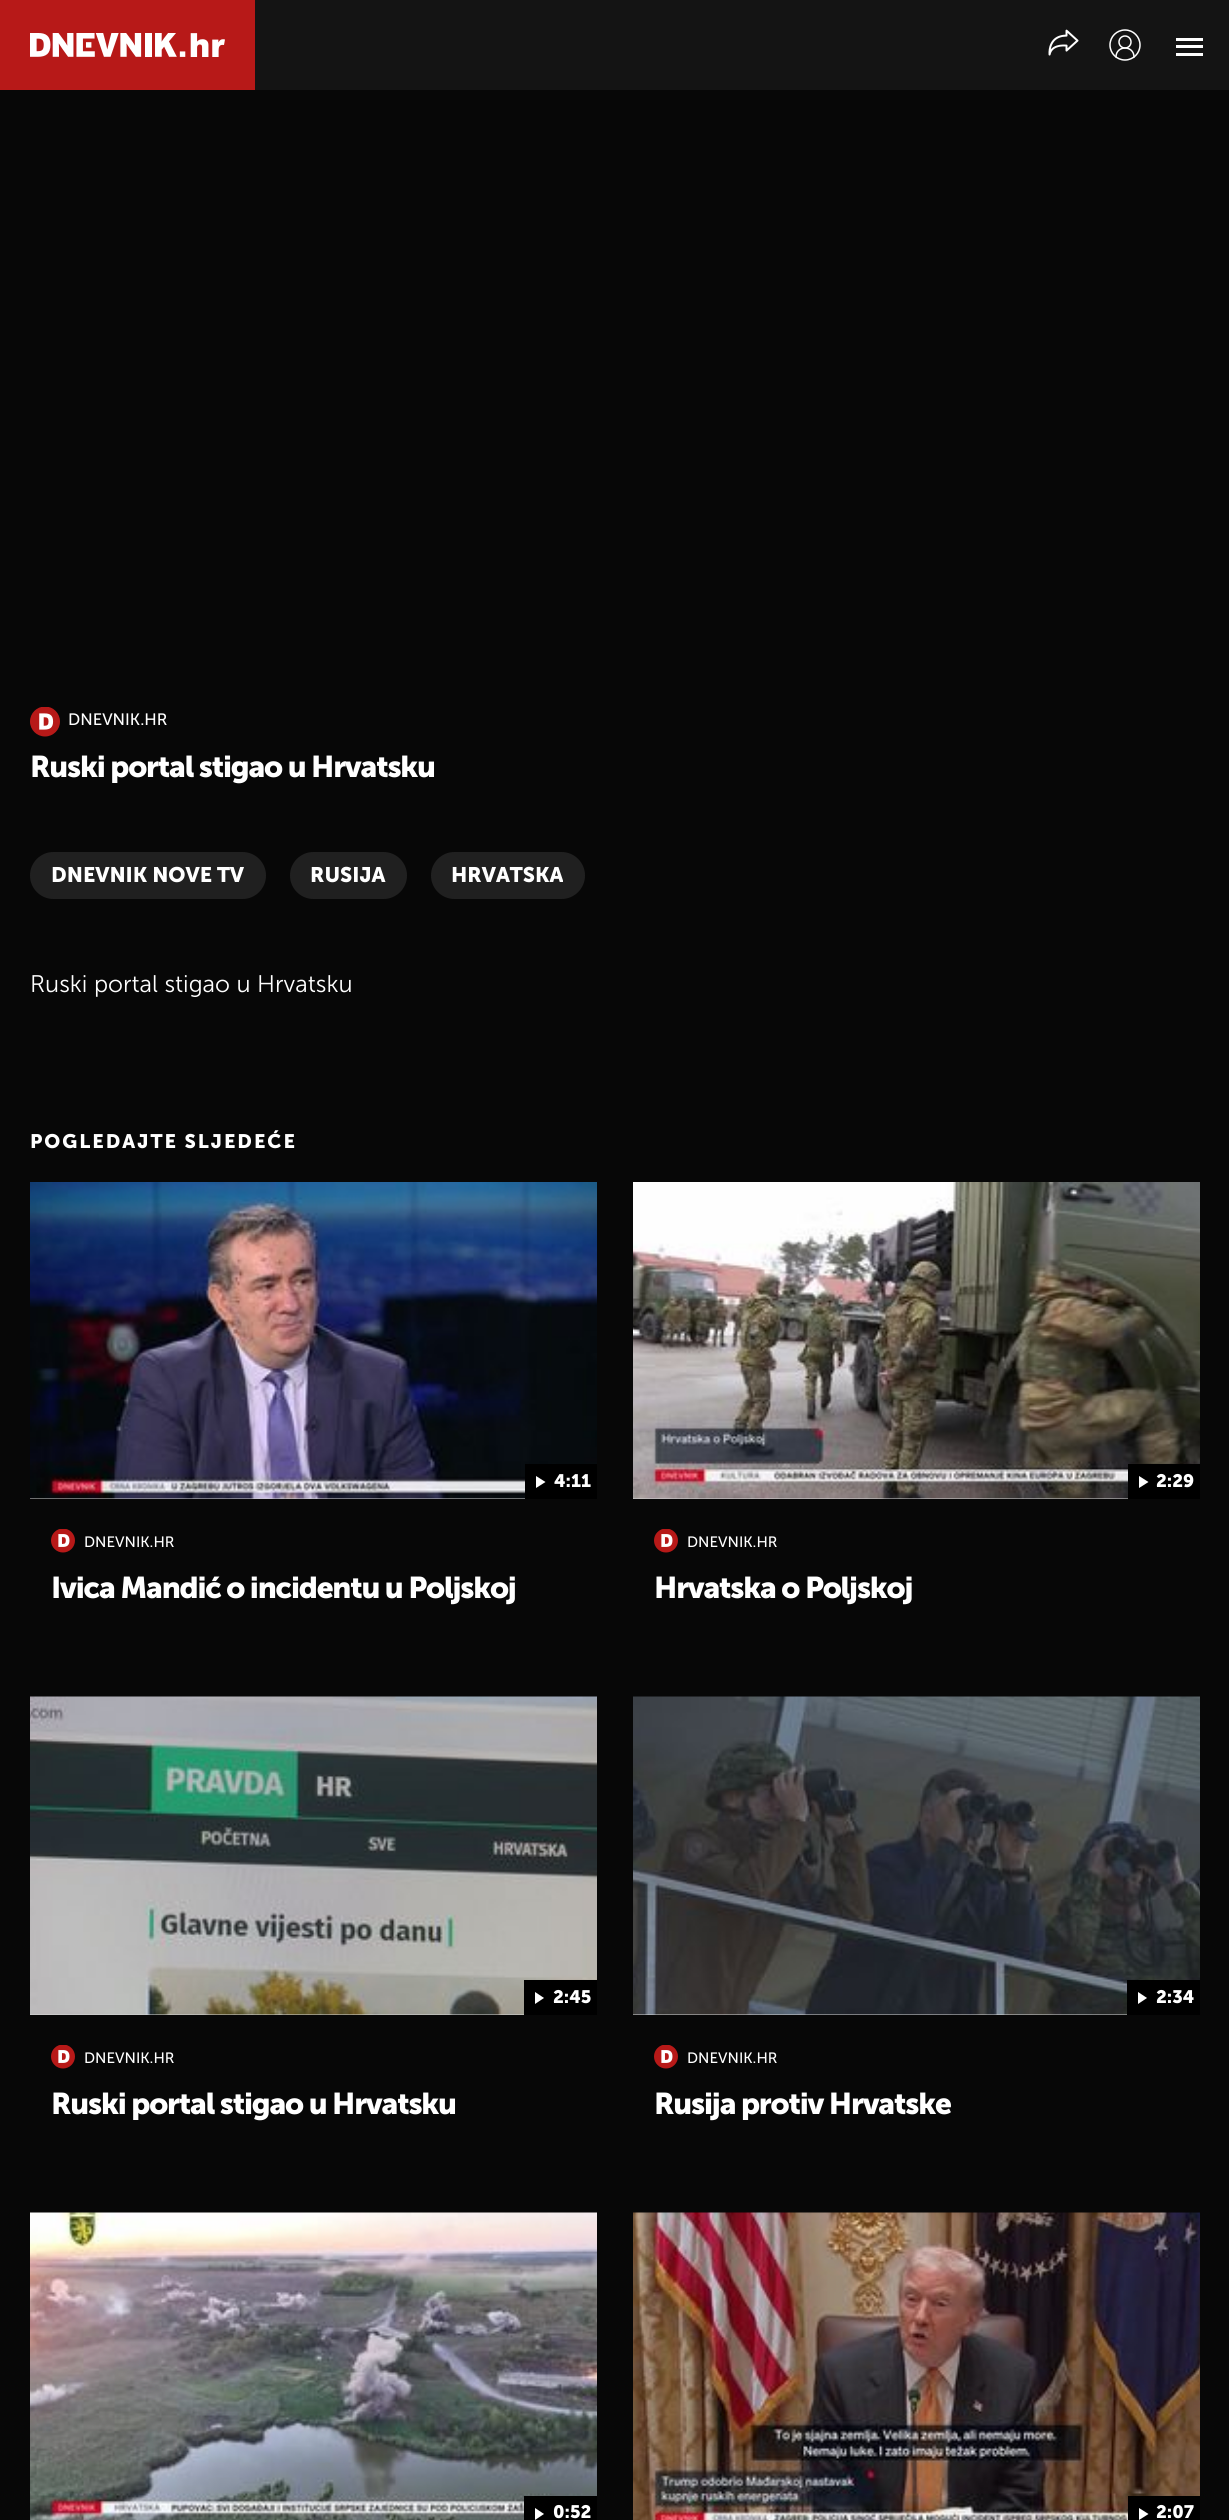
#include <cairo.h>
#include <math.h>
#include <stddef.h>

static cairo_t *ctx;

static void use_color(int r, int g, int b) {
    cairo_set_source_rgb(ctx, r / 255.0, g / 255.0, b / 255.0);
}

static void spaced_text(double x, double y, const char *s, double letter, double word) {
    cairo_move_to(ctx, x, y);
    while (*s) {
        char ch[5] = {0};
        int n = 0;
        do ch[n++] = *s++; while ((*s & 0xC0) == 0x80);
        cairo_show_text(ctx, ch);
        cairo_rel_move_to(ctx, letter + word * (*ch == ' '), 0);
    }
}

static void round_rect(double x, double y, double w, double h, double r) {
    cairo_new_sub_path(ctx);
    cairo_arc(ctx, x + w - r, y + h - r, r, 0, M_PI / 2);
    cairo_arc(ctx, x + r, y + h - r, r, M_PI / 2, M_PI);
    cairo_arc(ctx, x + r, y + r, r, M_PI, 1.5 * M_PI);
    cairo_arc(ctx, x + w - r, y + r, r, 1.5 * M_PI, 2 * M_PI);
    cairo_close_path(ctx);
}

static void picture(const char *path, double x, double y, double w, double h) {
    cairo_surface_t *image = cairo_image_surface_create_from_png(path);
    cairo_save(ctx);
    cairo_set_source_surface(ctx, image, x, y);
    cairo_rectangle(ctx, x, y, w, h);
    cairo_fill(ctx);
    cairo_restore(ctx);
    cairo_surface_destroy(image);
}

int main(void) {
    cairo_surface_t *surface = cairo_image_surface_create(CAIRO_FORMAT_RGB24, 1229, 2520);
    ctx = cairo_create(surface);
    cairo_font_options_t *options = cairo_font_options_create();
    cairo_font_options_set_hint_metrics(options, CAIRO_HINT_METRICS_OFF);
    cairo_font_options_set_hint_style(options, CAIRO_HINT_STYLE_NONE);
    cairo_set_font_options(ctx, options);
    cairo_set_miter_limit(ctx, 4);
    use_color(7, 7, 7);
    cairo_paint(ctx);
    use_color(20, 20, 20);
    cairo_rectangle(ctx, 255, 0, 974, 90);
    cairo_fill(ctx);
    use_color(183, 25, 24);
    cairo_rectangle(ctx, 0, 0, 255, 90);
    cairo_fill(ctx);
    picture("img1.png", 30, 33, 195, 24);
    picture("img2.png", 1048, 29, 31, 27);
    cairo_new_path(ctx);
    cairo_move_to(ctx, 1134, 57);
    cairo_curve_to(ctx, 1134, 45, 1116, 45, 1116, 57);
    use_color(255, 255, 255);
    cairo_set_line_width(ctx, 1.5);
    cairo_set_line_cap(ctx, CAIRO_LINE_CAP_ROUND);
    cairo_set_line_join(ctx, CAIRO_LINE_JOIN_ROUND);
    cairo_stroke(ctx);
    cairo_arc(ctx, 1125, 42, 6, 0, 2 * M_PI);
    cairo_set_line_cap(ctx, CAIRO_LINE_CAP_BUTT);
    cairo_set_line_join(ctx, CAIRO_LINE_JOIN_MITER);
    cairo_stroke(ctx);
    cairo_arc(ctx, 1125, 45, 15, 0, 2 * M_PI);
    cairo_stroke(ctx);
    cairo_rectangle(ctx, 1176, 45, 27, 3);
    cairo_fill(ctx);
    cairo_rectangle(ctx, 1176, 38, 27, 3);
    cairo_fill(ctx);
    cairo_rectangle(ctx, 1176, 53, 27, 3);
    cairo_fill(ctx);
    picture("img3.png", 30, 707, 30, 30);
    cairo_select_font_face(ctx, "Museo Sans", CAIRO_FONT_SLANT_NORMAL, CAIRO_FONT_WEIGHT_NORMAL);
    cairo_set_font_size(ctx, 16.5);
    cairo_move_to(ctx, 68, 725);
    cairo_show_text(ctx, "DNEVNIK.HR");
    cairo_select_font_face(ctx, "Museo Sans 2", CAIRO_FONT_SLANT_NORMAL, CAIRO_FONT_WEIGHT_NORMAL);
    cairo_set_font_size(ctx, 30);
    spaced_text(30, 777, "Ruski portal stigao u Hrvatsku", -1.2, 0);
    use_color(32, 32, 32);
    round_rect(31.5, 853.5, 233, 44, 22);
    cairo_fill_preserve(ctx);
    cairo_set_line_width(ctx, 3);
    cairo_stroke(ctx);
    cairo_set_font_size(ctx, 21);
    use_color(255, 255, 255);
    cairo_move_to(ctx, 51, 882);
    cairo_show_text(ctx, "DNEVNIK NOVE TV");
    use_color(32, 32, 32);
    round_rect(291.5, 853.5, 114, 44, 22);
    cairo_fill_preserve(ctx);
    cairo_stroke(ctx);
    use_color(255, 255, 255);
    cairo_move_to(ctx, 310, 882);
    cairo_show_text(ctx, "RUSIJA");
    use_color(32, 32, 32);
    round_rect(432.5, 853.5, 151, 44, 22);
    cairo_fill_preserve(ctx);
    cairo_stroke(ctx);
    use_color(255, 255, 255);
    cairo_move_to(ctx, 451, 882);
    cairo_show_text(ctx, "HRVATSKA");
    cairo_select_font_face(ctx, "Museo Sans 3", CAIRO_FONT_SLANT_NORMAL, CAIRO_FONT_WEIGHT_NORMAL);
    cairo_set_font_size(ctx, 24);
    cairo_move_to(ctx, 30, 992);
    cairo_show_text(ctx, "Ruski portal stigao u Hrvatsku");
    cairo_select_font_face(ctx, "Museo Sans 2", CAIRO_FONT_SLANT_NORMAL, CAIRO_FONT_WEIGHT_NORMAL);
    cairo_set_font_size(ctx, 19.5);
    spaced_text(30, 1148, "POGLEDAJTE SLJEDEĆE", 2, 0);
    use_color(217, 217, 217);
    cairo_rectangle(ctx, 30, 1498, 495, 1);
    cairo_fill(ctx);
    picture("img4.png", 30, 1182, 567, 317);
    use_color(0, 0, 0);
    cairo_rectangle(ctx, 525, 1464, 72, 35);
    cairo_fill(ctx);
    use_color(255, 255, 255);
    cairo_new_path(ctx);
    cairo_move_to(ctx, 536, 1488);
    cairo_line_to(ctx, 536, 1476);
    cairo_line_to(ctx, 545.5, 1482);
    cairo_close_path(ctx);
    cairo_fill(ctx);
    cairo_set_font_size(ctx, 18);
    cairo_move_to(ctx, 554, 1487);
    cairo_show_text(ctx, "4:11");
    picture("img5.png", 51, 1529, 24, 24);
    cairo_select_font_face(ctx, "Museo Sans", CAIRO_FONT_SLANT_NORMAL, CAIRO_FONT_WEIGHT_NORMAL);
    cairo_set_font_size(ctx, 15);
    cairo_move_to(ctx, 84, 1547);
    cairo_show_text(ctx, "DNEVNIK.HR");
    cairo_select_font_face(ctx, "Museo Sans 2", CAIRO_FONT_SLANT_NORMAL, CAIRO_FONT_WEIGHT_NORMAL);
    cairo_set_font_size(ctx, 30);
    spaced_text(51, 1598, "Ivica Mandić o incidentu u Poljskoj", -1.2, 0);
    use_color(217, 217, 217);
    cairo_rectangle(ctx, 633, 1498, 495, 1);
    cairo_fill(ctx);
    picture("img6.png", 633, 1182, 567, 317);
    use_color(0, 0, 0);
    cairo_rectangle(ctx, 1128, 1464, 72, 35);
    cairo_fill(ctx);
    use_color(255, 255, 255);
    cairo_new_path(ctx);
    cairo_move_to(ctx, 1139, 1488);
    cairo_line_to(ctx, 1139, 1476);
    cairo_line_to(ctx, 1148.5, 1482);
    cairo_close_path(ctx);
    cairo_fill(ctx);
    cairo_set_font_size(ctx, 18);
    cairo_move_to(ctx, 1156, 1487);
    cairo_show_text(ctx, "2:29");
    picture("img5.png", 654, 1529, 24, 24);
    cairo_select_font_face(ctx, "Museo Sans", CAIRO_FONT_SLANT_NORMAL, CAIRO_FONT_WEIGHT_NORMAL);
    cairo_set_font_size(ctx, 15);
    cairo_move_to(ctx, 687, 1547);
    cairo_show_text(ctx, "DNEVNIK.HR");
    cairo_select_font_face(ctx, "Museo Sans 2", CAIRO_FONT_SLANT_NORMAL, CAIRO_FONT_WEIGHT_NORMAL);
    cairo_set_font_size(ctx, 30);
    spaced_text(654, 1598, "Hrvatska o Poljskoj", -1.2, 0);
    use_color(217, 217, 217);
    cairo_rectangle(ctx, 30, 2014, 494, 1);
    cairo_fill(ctx);
    picture("img7.png", 30, 1696, 567, 319);
    use_color(0, 0, 0);
    cairo_rectangle(ctx, 524, 1980, 73, 35);
    cairo_fill(ctx);
    use_color(255, 255, 255);
    cairo_new_path(ctx);
    cairo_move_to(ctx, 535, 2004);
    cairo_line_to(ctx, 535, 1992);
    cairo_line_to(ctx, 544, 1998);
    cairo_close_path(ctx);
    cairo_fill(ctx);
    cairo_set_font_size(ctx, 18);
    cairo_move_to(ctx, 553, 2003);
    cairo_show_text(ctx, "2:45");
    picture("img5.png", 51, 2045, 24, 24);
    cairo_select_font_face(ctx, "Museo Sans", CAIRO_FONT_SLANT_NORMAL, CAIRO_FONT_WEIGHT_NORMAL);
    cairo_set_font_size(ctx, 15);
    cairo_move_to(ctx, 84, 2063);
    cairo_show_text(ctx, "DNEVNIK.HR");
    cairo_select_font_face(ctx, "Museo Sans 2", CAIRO_FONT_SLANT_NORMAL, CAIRO_FONT_WEIGHT_NORMAL);
    cairo_set_font_size(ctx, 30);
    spaced_text(51, 2114, "Ruski portal stigao u Hrvatsku", -1.2, 0);
    use_color(217, 217, 217);
    cairo_rectangle(ctx, 633, 2014, 494, 1);
    cairo_fill(ctx);
    picture("img8.png", 633, 1696, 567, 319);
    use_color(0, 0, 0);
    cairo_rectangle(ctx, 1127, 1980, 73, 35);
    cairo_fill(ctx);
    use_color(255, 255, 255);
    cairo_new_path(ctx);
    cairo_move_to(ctx, 1138, 2004);
    cairo_line_to(ctx, 1138, 1992);
    cairo_line_to(ctx, 1147, 1998);
    cairo_close_path(ctx);
    cairo_fill(ctx);
    cairo_set_font_size(ctx, 18);
    cairo_move_to(ctx, 1156, 2003);
    cairo_show_text(ctx, "2:34");
    picture("img5.png", 654, 2045, 24, 24);
    cairo_select_font_face(ctx, "Museo Sans", CAIRO_FONT_SLANT_NORMAL, CAIRO_FONT_WEIGHT_NORMAL);
    cairo_set_font_size(ctx, 15);
    cairo_move_to(ctx, 687, 2063);
    cairo_show_text(ctx, "DNEVNIK.HR");
    cairo_select_font_face(ctx, "Museo Sans 2", CAIRO_FONT_SLANT_NORMAL, CAIRO_FONT_WEIGHT_NORMAL);
    cairo_set_font_size(ctx, 30);
    spaced_text(654, 2114, "Rusija protiv Hrvatske", -1.2, 0);
    picture("img9.png", 30, 2212, 567, 308);
    use_color(0, 0, 0);
    cairo_rectangle(ctx, 524, 2496, 73, 24);
    cairo_fill(ctx);
    use_color(255, 255, 255);
    cairo_new_path(ctx);
    cairo_move_to(ctx, 535, 2520);
    cairo_line_to(ctx, 535, 2508);
    cairo_line_to(ctx, 544, 2514);
    cairo_close_path(ctx);
    cairo_fill(ctx);
    cairo_set_font_size(ctx, 18);
    cairo_move_to(ctx, 553, 2518);
    cairo_show_text(ctx, "0:52");
    picture("img10.png", 633, 2212, 567, 308);
    use_color(0, 0, 0);
    cairo_rectangle(ctx, 1128, 2496, 72, 24);
    cairo_fill(ctx);
    use_color(255, 255, 255);
    cairo_new_path(ctx);
    cairo_move_to(ctx, 1139, 2520);
    cairo_line_to(ctx, 1139, 2508);
    cairo_line_to(ctx, 1148.5, 2514);
    cairo_close_path(ctx);
    cairo_fill(ctx);
    cairo_move_to(ctx, 1156, 2518);
    cairo_show_text(ctx, "2:07");
    cairo_surface_write_to_png(surface, "result.png");
    cairo_font_options_destroy(options);
    cairo_destroy(ctx);
    cairo_surface_destroy(surface);
    return 0;
}
